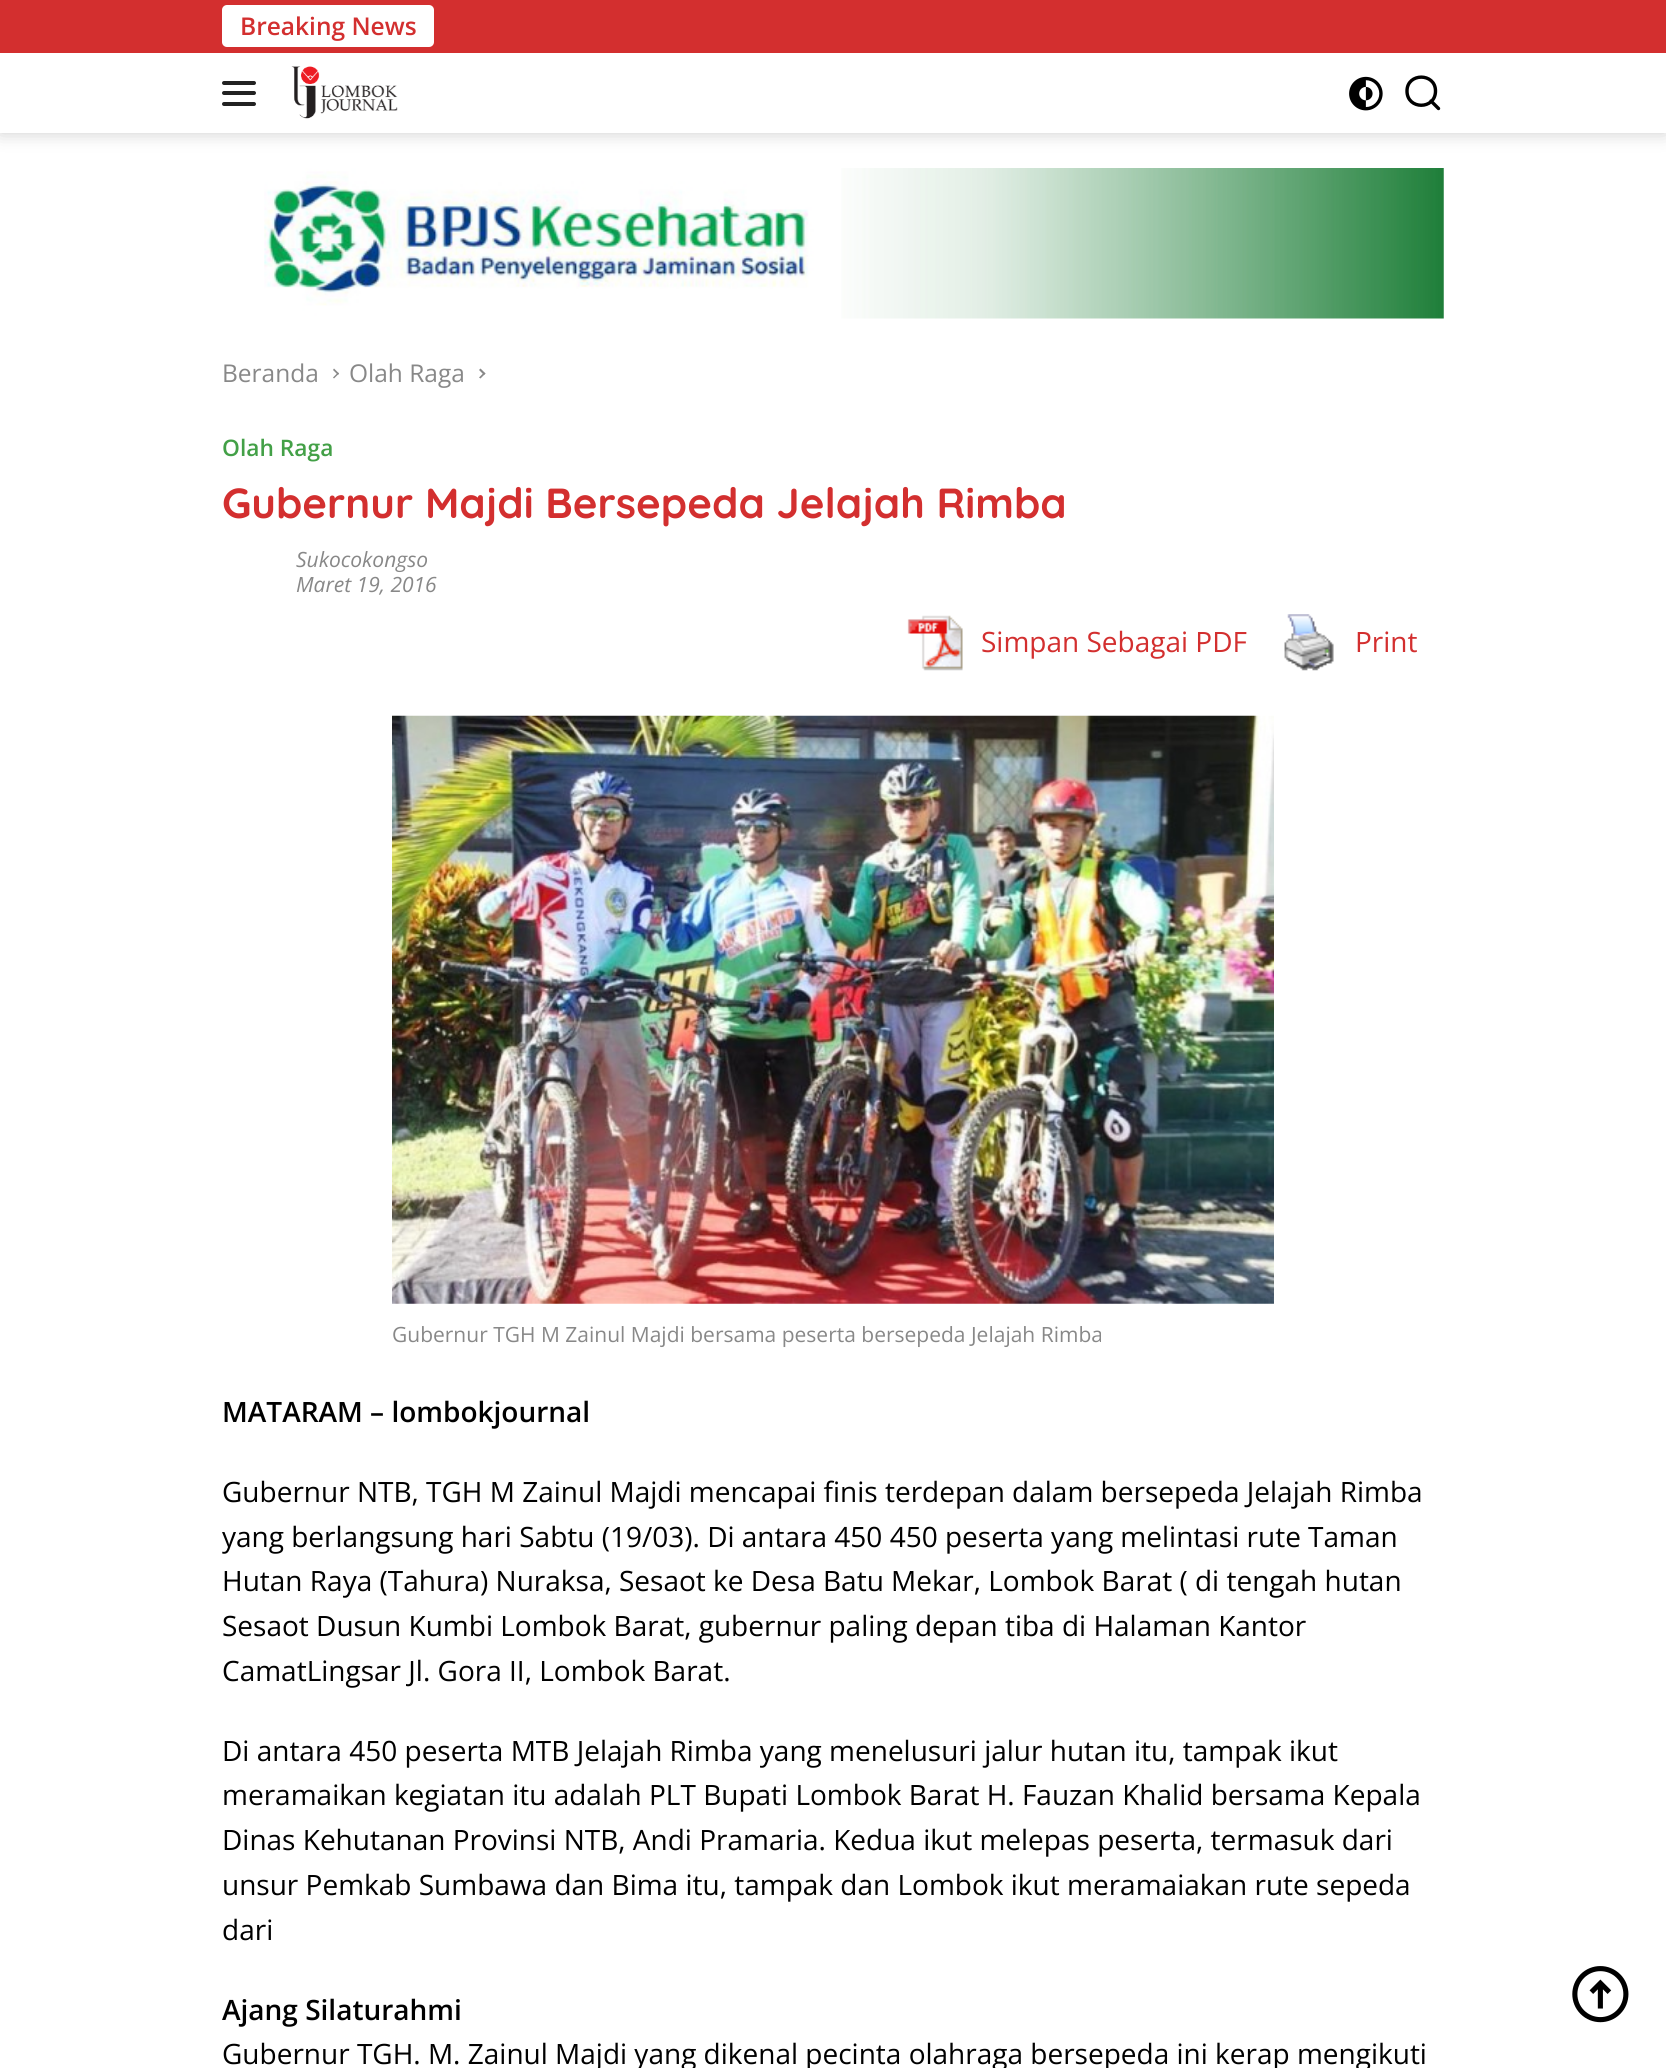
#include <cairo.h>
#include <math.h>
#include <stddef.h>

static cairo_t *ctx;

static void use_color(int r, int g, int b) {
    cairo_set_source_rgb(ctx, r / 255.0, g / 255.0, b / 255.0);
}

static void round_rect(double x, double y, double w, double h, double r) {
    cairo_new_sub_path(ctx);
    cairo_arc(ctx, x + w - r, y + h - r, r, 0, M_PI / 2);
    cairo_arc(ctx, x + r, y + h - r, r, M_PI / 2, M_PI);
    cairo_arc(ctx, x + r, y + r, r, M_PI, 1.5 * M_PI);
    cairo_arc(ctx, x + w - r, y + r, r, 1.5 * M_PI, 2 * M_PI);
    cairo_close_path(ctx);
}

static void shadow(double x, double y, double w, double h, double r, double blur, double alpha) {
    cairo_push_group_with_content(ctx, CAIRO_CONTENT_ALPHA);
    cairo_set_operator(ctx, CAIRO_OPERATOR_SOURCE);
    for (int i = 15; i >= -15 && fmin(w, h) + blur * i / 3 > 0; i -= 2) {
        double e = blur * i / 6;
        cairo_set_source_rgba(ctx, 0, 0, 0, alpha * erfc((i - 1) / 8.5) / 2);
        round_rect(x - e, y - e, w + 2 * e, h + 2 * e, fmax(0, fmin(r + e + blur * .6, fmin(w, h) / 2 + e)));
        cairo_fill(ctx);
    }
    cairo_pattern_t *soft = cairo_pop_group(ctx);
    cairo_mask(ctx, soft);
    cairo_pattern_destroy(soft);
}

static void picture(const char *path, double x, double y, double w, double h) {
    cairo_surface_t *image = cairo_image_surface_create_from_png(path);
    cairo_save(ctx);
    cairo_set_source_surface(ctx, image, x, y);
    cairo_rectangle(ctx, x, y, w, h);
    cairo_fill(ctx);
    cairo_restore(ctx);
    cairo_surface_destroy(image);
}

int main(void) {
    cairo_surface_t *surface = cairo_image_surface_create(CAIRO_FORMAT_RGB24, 1666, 2068);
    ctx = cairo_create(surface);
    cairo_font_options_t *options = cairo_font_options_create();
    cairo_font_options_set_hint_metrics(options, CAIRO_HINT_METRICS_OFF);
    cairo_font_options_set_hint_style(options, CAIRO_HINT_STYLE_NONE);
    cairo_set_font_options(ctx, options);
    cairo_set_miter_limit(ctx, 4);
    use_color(255, 255, 255);
    cairo_paint(ctx);
    use_color(0, 0, 0);
    shadow(0, 0, 1666, 133, 0, 9, 0.2);
    use_color(255, 255, 255);
    cairo_rectangle(ctx, 0, 53, 1666, 80);
    cairo_fill(ctx);
    use_color(211, 47, 47);
    cairo_rectangle(ctx, 0, 0, 1666, 53);
    cairo_fill(ctx);
    use_color(255, 255, 255);
    round_rect(222, 5, 212, 42, 5);
    cairo_fill(ctx);
    cairo_select_font_face(ctx, "Open Sans SemiBold", CAIRO_FONT_SLANT_NORMAL, CAIRO_FONT_WEIGHT_NORMAL);
    cairo_set_font_size(ctx, 24.5);
    use_color(211, 47, 47);
    cairo_move_to(ctx, 240, 35);
    cairo_show_text(ctx, "Breaking News");
    use_color(34, 34, 34);
    round_rect(222, 81, 34, 4, 2);
    cairo_fill(ctx);
    round_rect(222, 91, 34, 4, 2);
    cairo_fill(ctx);
    round_rect(222, 102, 34, 4, 2);
    cairo_fill(ctx);
    picture("img1.png", 291, 66, 107, 53);
    picture("img2.png", 1349, 76, 34, 35);
    cairo_new_path(ctx);
    cairo_move_to(ctx, 1438.5, 108.5);
    cairo_line_to(ctx, 1431, 101);
    cairo_move_to(ctx, 1435.5, 91);
    cairo_curve_to(ctx, 1435.5, 110, 1407, 110, 1407, 91);
    cairo_curve_to(ctx, 1407, 72.5, 1435.5, 72.5, 1435.5, 91);
    cairo_close_path(ctx);
    use_color(0, 0, 0);
    cairo_set_line_width(ctx, 3.4);
    cairo_set_line_cap(ctx, CAIRO_LINE_CAP_ROUND);
    cairo_stroke(ctx);
    picture("img3.png", 264, 168, 1180, 151);
    cairo_select_font_face(ctx, "Open Sans", CAIRO_FONT_SLANT_NORMAL, CAIRO_FONT_WEIGHT_NORMAL);
    use_color(136, 136, 136);
    cairo_move_to(ctx, 222, 382);
    cairo_show_text(ctx, "Beranda");
    cairo_new_path(ctx);
    cairo_move_to(ctx, 333, 370);
    cairo_line_to(ctx, 334, 368.5);
    cairo_line_to(ctx, 339, 373.5);
    cairo_line_to(ctx, 338, 375);
    cairo_close_path(ctx);
    cairo_fill(ctx);
    cairo_new_path(ctx);
    cairo_move_to(ctx, 333, 377.5);
    cairo_line_to(ctx, 338, 372.5);
    cairo_line_to(ctx, 339, 373.5);
    cairo_line_to(ctx, 334, 378.5);
    cairo_close_path(ctx);
    cairo_fill(ctx);
    cairo_move_to(ctx, 349, 382);
    cairo_show_text(ctx, "Olah Raga");
    cairo_new_path(ctx);
    cairo_move_to(ctx, 479, 370);
    cairo_line_to(ctx, 480.5, 368.5);
    cairo_line_to(ctx, 485.5, 373.5);
    cairo_line_to(ctx, 484, 375);
    cairo_close_path(ctx);
    cairo_fill(ctx);
    cairo_new_path(ctx);
    cairo_move_to(ctx, 479, 377.5);
    cairo_line_to(ctx, 484, 372.5);
    cairo_line_to(ctx, 485.5, 373.5);
    cairo_line_to(ctx, 480.5, 378.5);
    cairo_close_path(ctx);
    cairo_fill(ctx);
    cairo_select_font_face(ctx, "Open Sans SemiBold", CAIRO_FONT_SLANT_NORMAL, CAIRO_FONT_WEIGHT_NORMAL);
    cairo_set_font_size(ctx, 22.75);
    use_color(67, 160, 71);
    cairo_move_to(ctx, 222, 456);
    cairo_show_text(ctx, "Olah Raga");
    cairo_select_font_face(ctx, "Quicksand", CAIRO_FONT_SLANT_NORMAL, CAIRO_FONT_WEIGHT_BOLD);
    cairo_set_font_size(ctx, 42);
    use_color(211, 47, 47);
    cairo_move_to(ctx, 222, 518);
    cairo_show_text(ctx, "Gubernur Majdi Bersepeda Jelajah Rimba");
    cairo_select_font_face(ctx, "Open Sans", CAIRO_FONT_SLANT_ITALIC, CAIRO_FONT_WEIGHT_NORMAL);
    cairo_set_font_size(ctx, 21);
    use_color(136, 136, 136);
    cairo_move_to(ctx, 296, 567);
    cairo_show_text(ctx, "Sukocokongso");
    cairo_move_to(ctx, 296, 592);
    cairo_show_text(ctx, "Maret 19, 2016");
    picture("img4.png", 907, 615, 56, 56);
    cairo_select_font_face(ctx, "Open Sans", CAIRO_FONT_SLANT_NORMAL, CAIRO_FONT_WEIGHT_NORMAL);
    cairo_set_font_size(ctx, 28);
    use_color(211, 47, 47);
    cairo_move_to(ctx, 981, 652);
    cairo_show_text(ctx, "Simpan Sebagai PDF");
    picture("img5.png", 1284, 614, 50, 57);
    cairo_move_to(ctx, 1355, 652);
    cairo_show_text(ctx, "Print");
    picture("img6.png", 392, 715, 882, 589);
    cairo_set_font_size(ctx, 21);
    use_color(136, 136, 136);
    cairo_move_to(ctx, 392, 1342);
    cairo_show_text(ctx, "Gubernur TGH M Zainul Majdi bersama peserta bersepeda Jelajah Rimba");
    cairo_select_font_face(ctx, "Open Sans SemiBold", CAIRO_FONT_SLANT_NORMAL, CAIRO_FONT_WEIGHT_NORMAL);
    cairo_set_font_size(ctx, 28);
    use_color(0, 0, 0);
    cairo_move_to(ctx, 222, 1422);
    cairo_show_text(ctx, "MATARAM – lombokjournal");
    cairo_select_font_face(ctx, "Open Sans", CAIRO_FONT_SLANT_NORMAL, CAIRO_FONT_WEIGHT_NORMAL);
    cairo_move_to(ctx, 222, 1502);
    cairo_show_text(ctx, "Gubernur NTB, TGH M Zainul Majdi mencapai finis terdepan dalam bersepeda Jelajah Rimba");
    cairo_move_to(ctx, 222, 1547);
    cairo_show_text(ctx, "yang berlangsung hari Sabtu (19/03). Di antara 450 450 peserta yang melintasi rute Taman");
    cairo_move_to(ctx, 222, 1591);
    cairo_show_text(ctx, "Hutan Raya (Tahura) Nuraksa, Sesaot ke Desa Batu Mekar, Lombok Barat ( di tengah hutan");
    cairo_move_to(ctx, 222, 1636);
    cairo_show_text(ctx, "Sesaot Dusun Kumbi Lombok Barat, gubernur paling depan tiba di Halaman Kantor");
    cairo_move_to(ctx, 222, 1681);
    cairo_show_text(ctx, "CamatLingsar Jl. Gora II, Lombok Barat.");
    cairo_move_to(ctx, 222, 1761);
    cairo_show_text(ctx, "Di antara 450 peserta MTB Jelajah Rimba yang menelusuri jalur hutan itu, tampak ikut");
    cairo_move_to(ctx, 222, 1805);
    cairo_show_text(ctx, "meramaikan kegiatan itu adalah PLT Bupati Lombok Barat H. Fauzan Khalid bersama Kepala");
    cairo_move_to(ctx, 222, 1850);
    cairo_show_text(ctx, "Dinas Kehutanan Provinsi NTB, Andi Pramaria. Kedua ikut melepas peserta, termasuk dari");
    cairo_move_to(ctx, 222, 1895);
    cairo_show_text(ctx, "unsur Pemkab Sumbawa dan Bima itu, tampak dan Lombok ikut meramaiakan rute sepeda");
    cairo_move_to(ctx, 222, 1940);
    cairo_show_text(ctx, "dari");
    cairo_select_font_face(ctx, "Open Sans SemiBold", CAIRO_FONT_SLANT_NORMAL, CAIRO_FONT_WEIGHT_NORMAL);
    cairo_move_to(ctx, 222, 2020);
    cairo_show_text(ctx, "Ajang Silaturahmi");
    cairo_select_font_face(ctx, "Open Sans", CAIRO_FONT_SLANT_NORMAL, CAIRO_FONT_WEIGHT_NORMAL);
    cairo_move_to(ctx, 222, 2064);
    cairo_show_text(ctx, "Gubernur TGH. M. Zainul Majdi yang dikenal pecinta olahraga bersepeda ini kerap mengikuti");
    picture("img7.png", 1572, 1966, 57, 57);
    cairo_surface_write_to_png(surface, "result.png");
    cairo_font_options_destroy(options);
    cairo_destroy(ctx);
    cairo_surface_destroy(surface);
    return 0;
}
